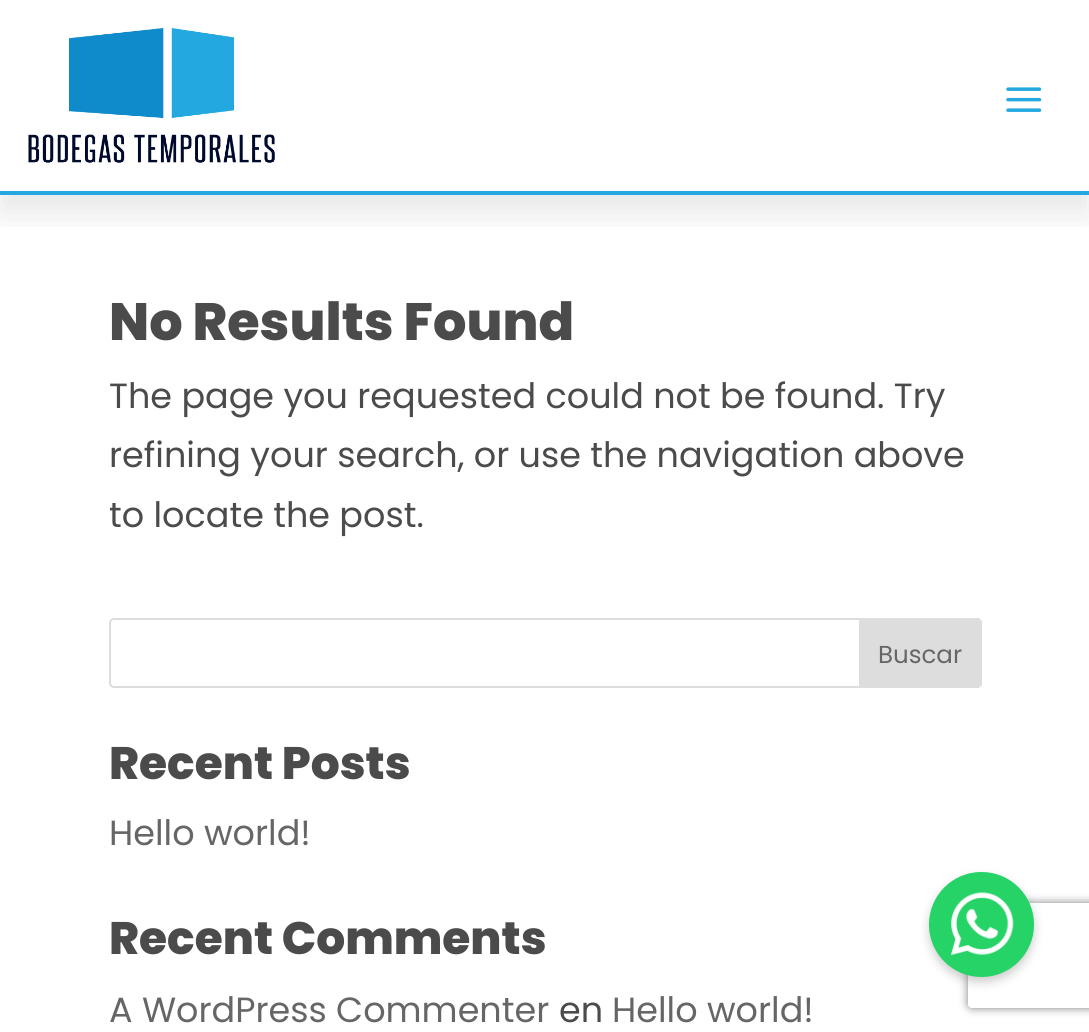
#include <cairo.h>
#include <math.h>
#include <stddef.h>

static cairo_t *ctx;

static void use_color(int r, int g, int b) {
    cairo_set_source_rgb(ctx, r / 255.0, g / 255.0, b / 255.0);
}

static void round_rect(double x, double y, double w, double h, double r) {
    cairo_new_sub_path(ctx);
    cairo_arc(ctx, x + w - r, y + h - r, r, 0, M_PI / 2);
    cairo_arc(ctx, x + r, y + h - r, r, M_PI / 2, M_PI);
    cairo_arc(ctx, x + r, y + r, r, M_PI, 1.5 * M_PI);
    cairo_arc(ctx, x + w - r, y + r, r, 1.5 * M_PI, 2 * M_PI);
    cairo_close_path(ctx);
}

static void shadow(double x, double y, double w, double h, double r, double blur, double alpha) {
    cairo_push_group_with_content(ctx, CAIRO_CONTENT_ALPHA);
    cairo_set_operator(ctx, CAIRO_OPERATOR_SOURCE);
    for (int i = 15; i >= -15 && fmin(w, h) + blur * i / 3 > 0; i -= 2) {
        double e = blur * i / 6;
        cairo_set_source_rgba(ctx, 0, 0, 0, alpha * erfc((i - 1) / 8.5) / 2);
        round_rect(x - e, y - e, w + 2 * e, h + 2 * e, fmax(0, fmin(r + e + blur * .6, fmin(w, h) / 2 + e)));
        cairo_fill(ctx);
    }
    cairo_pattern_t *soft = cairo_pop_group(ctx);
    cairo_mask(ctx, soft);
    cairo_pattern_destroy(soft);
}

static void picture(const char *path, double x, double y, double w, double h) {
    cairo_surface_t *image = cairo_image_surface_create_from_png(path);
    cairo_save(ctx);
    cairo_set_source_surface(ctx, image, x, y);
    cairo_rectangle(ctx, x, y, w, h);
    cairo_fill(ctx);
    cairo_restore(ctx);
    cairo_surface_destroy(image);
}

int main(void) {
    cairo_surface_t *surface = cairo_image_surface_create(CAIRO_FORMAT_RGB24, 1089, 1032);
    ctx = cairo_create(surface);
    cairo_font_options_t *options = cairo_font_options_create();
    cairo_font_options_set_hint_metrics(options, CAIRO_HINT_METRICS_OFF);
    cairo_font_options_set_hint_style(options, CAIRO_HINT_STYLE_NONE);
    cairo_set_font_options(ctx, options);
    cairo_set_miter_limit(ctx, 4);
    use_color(255, 255, 255);
    cairo_paint(ctx);
    cairo_save(ctx);
    cairo_rectangle(ctx, 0, 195, 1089, 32);
    cairo_clip(ctx);
    use_color(0, 0, 0);
    shadow(0, 18, 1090, 194, 0, 17.5, 0.1);
    cairo_restore(ctx);
    use_color(35, 168, 224);
    cairo_rectangle(ctx, 0, 191, 1089, 4);
    cairo_fill(ctx);
    picture("img1.png", 28, 28, 247, 135);
    picture("img2.png", 1006, 87, 36, 25);
    cairo_select_font_face(ctx, "Poppins ExtraBold", CAIRO_FONT_SLANT_NORMAL, CAIRO_FONT_WEIGHT_NORMAL);
    cairo_set_font_size(ctx, 52.5);
    use_color(75, 75, 75);
    cairo_move_to(ctx, 109, 340);
    cairo_show_text(ctx, "No Results Found");
    cairo_select_font_face(ctx, "Poppins", CAIRO_FONT_SLANT_NORMAL, CAIRO_FONT_WEIGHT_NORMAL);
    cairo_set_font_size(ctx, 35);
    cairo_move_to(ctx, 109, 408);
    cairo_show_text(ctx, "The page you requested could not be found. Try");
    cairo_move_to(ctx, 109, 467);
    cairo_show_text(ctx, "refining your search, or use the navigation above");
    cairo_move_to(ctx, 109, 527);
    cairo_show_text(ctx, "to locate the post.");
    round_rect(110, 619, 871, 68, 4);
    use_color(221, 221, 221);
    cairo_stroke(ctx);
    cairo_new_path(ctx);
    cairo_move_to(ctx, 860, 619);
    cairo_line_to(ctx, 977, 619);
    cairo_curve_to(ctx, 979, 619, 981, 621, 981, 623);
    cairo_line_to(ctx, 981, 683);
    cairo_curve_to(ctx, 981, 685, 979, 687, 977, 687);
    cairo_line_to(ctx, 860, 687);
    cairo_close_path(ctx);
    cairo_fill_preserve(ctx);
    cairo_stroke(ctx);
    cairo_set_font_size(ctx, 24.5);
    use_color(102, 102, 102);
    cairo_move_to(ctx, 878, 663);
    cairo_show_text(ctx, "Buscar");
    cairo_select_font_face(ctx, "Poppins ExtraBold", CAIRO_FONT_SLANT_NORMAL, CAIRO_FONT_WEIGHT_NORMAL);
    cairo_set_font_size(ctx, 45.5);
    use_color(75, 75, 75);
    cairo_move_to(ctx, 109, 779);
    cairo_show_text(ctx, "Recent Posts");
    cairo_select_font_face(ctx, "Poppins", CAIRO_FONT_SLANT_NORMAL, CAIRO_FONT_WEIGHT_NORMAL);
    cairo_set_font_size(ctx, 35);
    use_color(102, 102, 102);
    cairo_move_to(ctx, 109, 845);
    cairo_show_text(ctx, "Hello world!");
    cairo_select_font_face(ctx, "Poppins ExtraBold", CAIRO_FONT_SLANT_NORMAL, CAIRO_FONT_WEIGHT_NORMAL);
    cairo_set_font_size(ctx, 45.5);
    use_color(75, 75, 75);
    cairo_move_to(ctx, 109, 954);
    cairo_show_text(ctx, "Recent Comments");
    cairo_select_font_face(ctx, "Poppins", CAIRO_FONT_SLANT_NORMAL, CAIRO_FONT_WEIGHT_NORMAL);
    cairo_set_font_size(ctx, 35);
    use_color(102, 102, 102);
    cairo_move_to(ctx, 109, 1022);
    cairo_show_text(ctx, "A WordPress Commenter");
    use_color(75, 75, 75);
    cairo_move_to(ctx, 559, 1022);
    cairo_show_text(ctx, "en");
    use_color(102, 102, 102);
    cairo_move_to(ctx, 612, 1022);
    cairo_show_text(ctx, "Hello world!");
    use_color(0, 0, 0);
    shadow(929, 877, 105, 105, 52.5, 5, 0.2);
    cairo_save(ctx);
    cairo_set_fill_rule(ctx, CAIRO_FILL_RULE_EVEN_ODD);
    cairo_new_path(ctx);
    cairo_move_to(ctx, 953, 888);
    cairo_line_to(ctx, 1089, 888);
    cairo_line_to(ctx, 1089, 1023);
    cairo_line_to(ctx, 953, 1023);
    cairo_close_path(ctx);
    cairo_move_to(ctx, 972, 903);
    cairo_line_to(ctx, 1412, 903);
    cairo_curve_to(ctx, 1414, 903, 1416, 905, 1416, 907);
    cairo_line_to(ctx, 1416, 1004);
    cairo_curve_to(ctx, 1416, 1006, 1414, 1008, 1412, 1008);
    cairo_line_to(ctx, 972, 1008);
    cairo_curve_to(ctx, 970, 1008, 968, 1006, 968, 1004);
    cairo_line_to(ctx, 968, 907);
    cairo_curve_to(ctx, 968, 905, 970, 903, 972, 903);
    cairo_close_path(ctx);
    cairo_clip(ctx);
    use_color(128, 128, 128);
    shadow(968, 903, 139, 105, 4, 4.5, 1);
    cairo_restore(ctx);
    use_color(37, 211, 102);
    cairo_arc(ctx, 981.5, 924.5, 52.5, 0, 2 * M_PI);
    cairo_fill(ctx);
    cairo_set_source_rgba(ctx, 0.145, 0.827, 0.4, 0.2);
    cairo_arc(ctx, 981.5, 924.5, 52.5, 0, 2 * M_PI);
    cairo_fill(ctx);
    picture("img3.png", 950, 892, 64, 64);
    cairo_surface_write_to_png(surface, "result.png");
    cairo_font_options_destroy(options);
    cairo_destroy(ctx);
    cairo_surface_destroy(surface);
    return 0;
}
